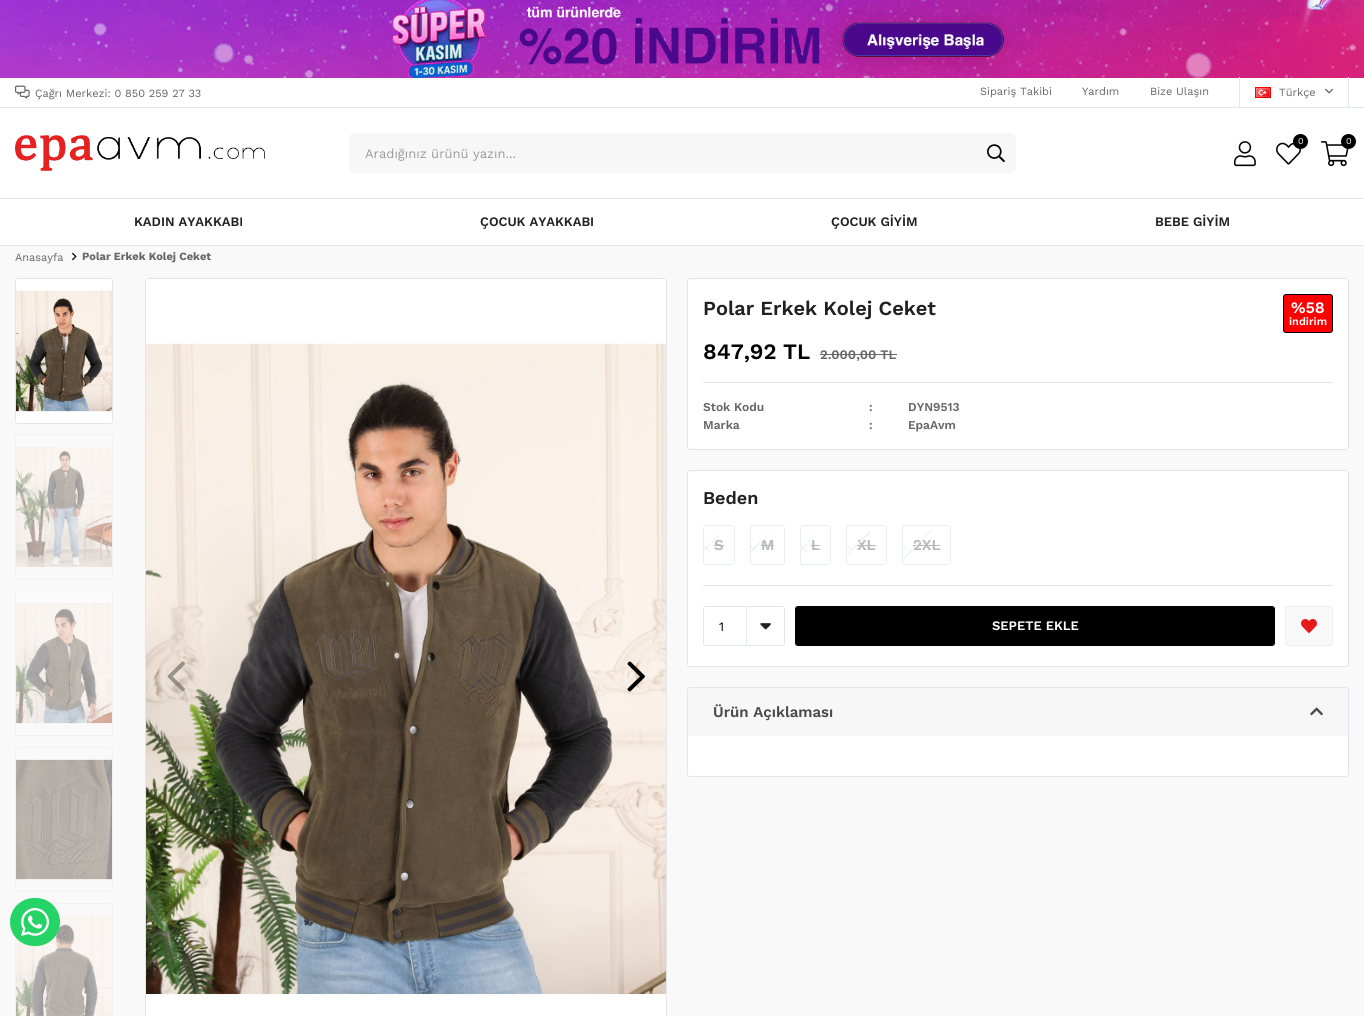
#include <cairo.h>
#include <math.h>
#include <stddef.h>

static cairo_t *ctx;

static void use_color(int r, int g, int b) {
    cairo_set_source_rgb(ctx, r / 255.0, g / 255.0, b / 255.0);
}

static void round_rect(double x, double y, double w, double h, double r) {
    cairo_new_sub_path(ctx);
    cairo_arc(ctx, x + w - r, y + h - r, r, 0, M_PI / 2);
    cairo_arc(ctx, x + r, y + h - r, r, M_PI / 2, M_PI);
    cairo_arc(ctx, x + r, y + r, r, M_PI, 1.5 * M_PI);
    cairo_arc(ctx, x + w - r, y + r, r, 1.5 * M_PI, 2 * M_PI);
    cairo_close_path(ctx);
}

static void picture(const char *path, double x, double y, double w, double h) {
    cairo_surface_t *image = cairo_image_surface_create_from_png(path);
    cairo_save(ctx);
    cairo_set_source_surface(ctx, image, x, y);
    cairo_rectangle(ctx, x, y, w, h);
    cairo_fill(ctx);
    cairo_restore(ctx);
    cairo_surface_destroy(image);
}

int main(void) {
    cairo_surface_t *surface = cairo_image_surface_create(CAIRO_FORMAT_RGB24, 1364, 1016);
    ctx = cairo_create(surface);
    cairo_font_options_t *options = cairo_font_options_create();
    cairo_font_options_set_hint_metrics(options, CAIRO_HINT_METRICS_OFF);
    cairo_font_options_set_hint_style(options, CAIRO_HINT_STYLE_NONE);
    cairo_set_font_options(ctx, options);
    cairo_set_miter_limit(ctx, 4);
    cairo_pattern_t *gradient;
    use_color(250, 249, 249);
    cairo_paint(ctx);
    use_color(255, 255, 255);
    cairo_rectangle(ctx, 0, 78, 1364, 167);
    cairo_fill(ctx);
    picture("img1.png", 0, 0, 1364, 78);
    use_color(226, 230, 235);
    cairo_rectangle(ctx, 0, 107, 1364, 1);
    cairo_fill(ctx);
    picture("img2.png", 15, 85, 15, 14);
    cairo_select_font_face(ctx, "Work Sans", CAIRO_FONT_SLANT_NORMAL, CAIRO_FONT_WEIGHT_NORMAL);
    cairo_set_font_size(ctx, 11);
    use_color(102, 102, 102);
    cairo_move_to(ctx, 35, 97);
    cairo_show_text(ctx, "Çağrı Merkezi: 0 850 259 27 33");
    cairo_move_to(ctx, 980, 95);
    cairo_show_text(ctx, "Sipariş Takibi");
    cairo_move_to(ctx, 1082, 95);
    cairo_show_text(ctx, "Yardım");
    cairo_move_to(ctx, 1150, 95);
    cairo_show_text(ctx, "Bize Ulaşın");
    use_color(226, 230, 235);
    cairo_rectangle(ctx, 1348, 77, 1, 31);
    cairo_fill(ctx);
    cairo_rectangle(ctx, 1239, 77, 1, 31);
    cairo_fill(ctx);
    picture("img3.png", 1255, 87, 16, 11);
    use_color(102, 102, 102);
    cairo_move_to(ctx, 1279, 96);
    cairo_show_text(ctx, "Türkçe");
    picture("img4.png", 1325, 88, 9, 6);
    picture("img5.png", 15, 135, 250, 36);
    picture("img6.png", 1234, 141, 22, 26);
    picture("img7.png", 1276, 142, 25, 23);
    use_color(0, 0, 0);
    cairo_arc(ctx, 1300.5, 141.5, 7.5, 0, 2 * M_PI);
    cairo_fill(ctx);
    cairo_set_font_size(ctx, 9);
    use_color(255, 255, 255);
    cairo_move_to(ctx, 1298, 144);
    cairo_show_text(ctx, "0");
    picture("img8.png", 1321, 141, 28, 26);
    use_color(0, 0, 0);
    cairo_arc(ctx, 1348.5, 141.5, 7.5, 0, 2 * M_PI);
    cairo_fill(ctx);
    use_color(255, 255, 255);
    cairo_move_to(ctx, 1346, 144);
    cairo_show_text(ctx, "0");
    use_color(247, 247, 247);
    round_rect(349, 133, 667, 40, 5);
    cairo_fill(ctx);
    cairo_set_font_size(ctx, 13);
    use_color(154, 154, 154);
    cairo_move_to(ctx, 365, 158);
    cairo_show_text(ctx, "Aradığınız ürünü yazın...");
    picture("img9.png", 987, 144, 18, 19);
    use_color(226, 230, 235);
    cairo_rectangle(ctx, 0, 198, 1364, 1);
    cairo_fill(ctx);
    cairo_rectangle(ctx, 0, 245, 1364, 1);
    cairo_fill(ctx);
    cairo_select_font_face(ctx, "Work Sans SemiBold", CAIRO_FONT_SLANT_NORMAL, CAIRO_FONT_WEIGHT_NORMAL);
    use_color(33, 33, 33);
    cairo_move_to(ctx, 134, 226);
    cairo_show_text(ctx, "KADIN AYAKKABI");
    cairo_move_to(ctx, 480, 226);
    cairo_show_text(ctx, "ÇOCUK AYAKKABI");
    cairo_move_to(ctx, 831, 226);
    cairo_show_text(ctx, "ÇOCUK GİYİM");
    cairo_move_to(ctx, 1155, 226);
    cairo_show_text(ctx, "BEBE GİYİM");
    cairo_select_font_face(ctx, "Work Sans", CAIRO_FONT_SLANT_NORMAL, CAIRO_FONT_WEIGHT_NORMAL);
    cairo_set_font_size(ctx, 11);
    use_color(102, 102, 102);
    cairo_move_to(ctx, 15, 261);
    cairo_show_text(ctx, "Anasayfa");
    picture("img10.png", 72, 252, 5, 9);
    cairo_select_font_face(ctx, "Work Sans", CAIRO_FONT_SLANT_NORMAL, CAIRO_FONT_WEIGHT_BOLD);
    cairo_move_to(ctx, 82, 260);
    cairo_show_text(ctx, "Polar Erkek Kolej Ceket");
    round_rect(15.5, 278.5, 97, 145, 2.5);
    use_color(226, 230, 235);
    cairo_set_line_width(ctx, 1);
    cairo_stroke(ctx);
    picture("img11.png", 16, 279, 96, 144);
    round_rect(15.5, 434.5, 97, 145, 2.5);
    use_color(240, 241, 243);
    cairo_stroke(ctx);
    picture("img12.png", 16, 447, 96, 120);
    round_rect(15.5, 591.5, 97, 144, 2.5);
    cairo_stroke(ctx);
    picture("img13.png", 16, 591, 96, 133);
    round_rect(15.5, 747.5, 97, 144, 2.5);
    cairo_stroke(ctx);
    picture("img14.png", 16, 759, 96, 121);
    round_rect(15.5, 903.5, 97, 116, 2.5);
    cairo_stroke(ctx);
    picture("img15.png", 16, 916, 96, 100);
    use_color(255, 255, 255);
    round_rect(145.5, 278.5, 521, 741, 2.5);
    cairo_fill_preserve(ctx);
    use_color(226, 230, 235);
    cairo_stroke(ctx);
    picture("img16.png", 146, 279, 520, 721);
    picture("img17.png", 167, 661, 18, 31);
    picture("img18.png", 627, 661, 18, 31);
    use_color(255, 255, 255);
    round_rect(687.5, 278.5, 661, 171, 2.5);
    cairo_fill_preserve(ctx);
    use_color(226, 230, 235);
    cairo_stroke(ctx);
    cairo_select_font_face(ctx, "Work Sans SemiBold", CAIRO_FONT_SLANT_NORMAL, CAIRO_FONT_WEIGHT_NORMAL);
    cairo_set_font_size(ctx, 20);
    use_color(33, 33, 33);
    cairo_move_to(ctx, 703, 315);
    cairo_show_text(ctx, "Polar Erkek Kolej Ceket");
    use_color(226, 230, 235);
    cairo_rectangle(ctx, 703, 382, 630, 1);
    cairo_fill(ctx);
    cairo_set_font_size(ctx, 22);
    use_color(0, 0, 0);
    cairo_move_to(ctx, 703, 359);
    cairo_show_text(ctx, "847,92 TL");
    use_color(255, 0, 0);
    round_rect(1283.5, 294.5, 49, 38, 2.5);
    cairo_fill_preserve(ctx);
    use_color(0, 0, 0);
    cairo_stroke(ctx);
    cairo_set_font_size(ctx, 16);
    use_color(255, 255, 255);
    cairo_move_to(ctx, 1291, 313);
    cairo_show_text(ctx, "%58");
    cairo_set_font_size(ctx, 11);
    cairo_move_to(ctx, 1289, 325);
    cairo_show_text(ctx, "indirim");
    cairo_set_font_size(ctx, 13);
    use_color(102, 102, 102);
    cairo_move_to(ctx, 820, 359);
    cairo_show_text(ctx, "2.000,00 TL");
    cairo_rectangle(ctx, 820, 354, 77, 1);
    cairo_fill(ctx);
    cairo_set_font_size(ctx, 12);
    cairo_move_to(ctx, 703, 411);
    cairo_show_text(ctx, "Stok Kodu");
    cairo_move_to(ctx, 869, 411);
    cairo_show_text(ctx, ":");
    cairo_move_to(ctx, 908, 411);
    cairo_show_text(ctx, "DYN9513");
    cairo_move_to(ctx, 703, 429);
    cairo_show_text(ctx, "Marka");
    cairo_move_to(ctx, 869, 429);
    cairo_show_text(ctx, ":");
    cairo_move_to(ctx, 908, 429);
    cairo_show_text(ctx, "EpaAvm");
    use_color(255, 255, 255);
    round_rect(687.5, 470.5, 661, 196, 2.5);
    cairo_fill_preserve(ctx);
    use_color(226, 230, 235);
    cairo_stroke(ctx);
    cairo_rectangle(ctx, 703, 585, 630, 1);
    cairo_fill(ctx);
    cairo_set_font_size(ctx, 18);
    use_color(33, 33, 33);
    cairo_move_to(ctx, 703, 504);
    cairo_show_text(ctx, "Beden");
    round_rect(703.5, 525.5, 31, 39, 2.5);
    use_color(235, 238, 241);
    cairo_stroke(ctx);
    cairo_new_path(ctx);
    cairo_move_to(ctx, 704.5, 545.5);
    cairo_line_to(ctx, 710, 551);
    cairo_curve_to(ctx, 710, 551, 711.5, 553.5, 710.5, 552.5);
    cairo_line_to(ctx, 704, 546.5);
    cairo_line_to(ctx, 704, 545);
    cairo_close_path(ctx);
    cairo_fill(ctx);
    cairo_set_font_size(ctx, 15);
    use_color(184, 184, 184);
    cairo_move_to(ctx, 714, 550);
    cairo_show_text(ctx, "S");
    cairo_rectangle(ctx, 714, 545, 10, 1);
    cairo_fill(ctx);
    use_color(235, 238, 241);
    cairo_new_path(ctx);
    cairo_move_to(ctx, 704, 551);
    cairo_line_to(ctx, 704, 550);
    cairo_line_to(ctx, 719, 535);
    cairo_line_to(ctx, 719.5, 535.5);
    cairo_close_path(ctx);
    cairo_fill(ctx);
    gradient = cairo_pattern_create_linear(708, 545, 710, 546);
    cairo_pattern_add_color_stop_rgba(gradient, 0, 0.922, 0.933, 0.945, 0);
    cairo_pattern_add_color_stop_rgba(gradient, 0, 0.922, 0.933, 0.945, 1);
    cairo_pattern_add_color_stop_rgba(gradient, 0.5, 0.922, 0.933, 0.945, 1);
    cairo_pattern_add_color_stop_rgba(gradient, 0.5, 0.922, 0.933, 0.945, 0);
    cairo_set_source(ctx, gradient);
    cairo_pattern_destroy(gradient);
    cairo_new_path(ctx);
    cairo_move_to(ctx, 704, 551);
    cairo_line_to(ctx, 704, 550);
    cairo_line_to(ctx, 719, 535);
    cairo_line_to(ctx, 719.5, 535.5);
    cairo_close_path(ctx);
    cairo_fill(ctx);
    round_rect(750.5, 525.5, 34, 39, 2.5);
    use_color(235, 238, 241);
    cairo_stroke(ctx);
    cairo_new_path(ctx);
    cairo_move_to(ctx, 751, 545.5);
    cairo_line_to(ctx, 757.5, 552);
    cairo_curve_to(ctx, 758.5, 553.5, 757, 552, 756.5, 551.5);
    cairo_line_to(ctx, 751, 547);
    cairo_close_path(ctx);
    cairo_fill(ctx);
    use_color(184, 184, 184);
    cairo_move_to(ctx, 761, 550);
    cairo_show_text(ctx, "M");
    cairo_rectangle(ctx, 761, 545, 13, 1);
    cairo_fill(ctx);
    use_color(235, 238, 241);
    cairo_new_path(ctx);
    cairo_move_to(ctx, 751, 553);
    cairo_line_to(ctx, 751, 551);
    cairo_line_to(ctx, 769, 533.5);
    cairo_line_to(ctx, 769.5, 534);
    cairo_close_path(ctx);
    cairo_fill(ctx);
    gradient = cairo_pattern_create_linear(757, 545, 758, 546);
    cairo_pattern_add_color_stop_rgba(gradient, 0, 0.922, 0.933, 0.945, 0);
    cairo_pattern_add_color_stop_rgba(gradient, 0, 0.922, 0.933, 0.945, 1);
    cairo_pattern_add_color_stop_rgba(gradient, 0.5, 0.922, 0.933, 0.945, 1);
    cairo_pattern_add_color_stop_rgba(gradient, 0.5, 0.922, 0.933, 0.945, 0);
    cairo_set_source(ctx, gradient);
    cairo_pattern_destroy(gradient);
    cairo_new_path(ctx);
    cairo_move_to(ctx, 751, 553);
    cairo_line_to(ctx, 751, 551);
    cairo_line_to(ctx, 769, 533.5);
    cairo_line_to(ctx, 769.5, 534);
    cairo_close_path(ctx);
    cairo_fill(ctx);
    round_rect(800.5, 525.5, 30, 39, 2.5);
    use_color(235, 238, 241);
    cairo_stroke(ctx);
    cairo_new_path(ctx);
    cairo_move_to(ctx, 801, 546.5);
    cairo_line_to(ctx, 801, 545);
    cairo_line_to(ctx, 807.5, 552);
    cairo_curve_to(ctx, 808.5, 553.5, 807.5, 552.5, 806.5, 552);
    cairo_close_path(ctx);
    cairo_fill(ctx);
    use_color(184, 184, 184);
    cairo_move_to(ctx, 811, 550);
    cairo_show_text(ctx, "L");
    cairo_rectangle(ctx, 811, 545, 9, 1);
    cairo_fill(ctx);
    use_color(235, 238, 241);
    cairo_new_path(ctx);
    cairo_move_to(ctx, 801, 551);
    cairo_line_to(ctx, 801, 549.5);
    cairo_line_to(ctx, 815.5, 535);
    cairo_line_to(ctx, 816, 535.5);
    cairo_close_path(ctx);
    cairo_fill(ctx);
    round_rect(846.5, 525.5, 40, 39, 2.5);
    cairo_stroke(ctx);
    cairo_new_path(ctx);
    cairo_move_to(ctx, 847, 546.5);
    cairo_line_to(ctx, 847, 545);
    cairo_line_to(ctx, 853.5, 552);
    cairo_curve_to(ctx, 855, 553.5, 852.5, 551.5, 852.5, 551.5);
    cairo_close_path(ctx);
    cairo_fill(ctx);
    use_color(184, 184, 184);
    cairo_move_to(ctx, 857, 550);
    cairo_show_text(ctx, "XL");
    cairo_rectangle(ctx, 857, 545, 19, 1);
    cairo_fill(ctx);
    use_color(235, 238, 241);
    cairo_new_path(ctx);
    cairo_move_to(ctx, 847, 555.5);
    cairo_line_to(ctx, 847, 554.5);
    cairo_line_to(ctx, 869.5, 531.5);
    cairo_line_to(ctx, 870.5, 532.5);
    cairo_close_path(ctx);
    cairo_fill(ctx);
    gradient = cairo_pattern_create_linear(856, 545, 857, 546);
    cairo_pattern_add_color_stop_rgba(gradient, 0, 0.922, 0.933, 0.945, 0);
    cairo_pattern_add_color_stop_rgba(gradient, 0, 0.922, 0.933, 0.945, 1);
    cairo_pattern_add_color_stop_rgba(gradient, 0.5, 0.922, 0.933, 0.945, 1);
    cairo_pattern_add_color_stop_rgba(gradient, 0.5, 0.922, 0.933, 0.945, 0);
    cairo_set_source(ctx, gradient);
    cairo_pattern_destroy(gradient);
    cairo_new_path(ctx);
    cairo_move_to(ctx, 847, 555.5);
    cairo_line_to(ctx, 847, 554.5);
    cairo_line_to(ctx, 869.5, 531.5);
    cairo_line_to(ctx, 870.5, 532.5);
    cairo_close_path(ctx);
    cairo_fill(ctx);
    round_rect(902.5, 525.5, 48, 39, 2.5);
    use_color(235, 238, 241);
    cairo_stroke(ctx);
    cairo_new_path(ctx);
    cairo_move_to(ctx, 903, 545.5);
    cairo_line_to(ctx, 909.5, 552);
    cairo_curve_to(ctx, 910.5, 553.5, 909, 552, 908.5, 551.5);
    cairo_line_to(ctx, 903, 547);
    cairo_close_path(ctx);
    cairo_fill(ctx);
    use_color(184, 184, 184);
    cairo_move_to(ctx, 913, 550);
    cairo_show_text(ctx, "2XL");
    cairo_rectangle(ctx, 913, 545, 27, 1);
    cairo_fill(ctx);
    use_color(235, 238, 241);
    cairo_new_path(ctx);
    cairo_move_to(ctx, 903, 560);
    cairo_line_to(ctx, 903, 558.5);
    cairo_line_to(ctx, 933, 528.5);
    cairo_line_to(ctx, 933.5, 529);
    cairo_close_path(ctx);
    cairo_fill(ctx);
    gradient = cairo_pattern_create_linear(916, 545, 917, 546);
    cairo_pattern_add_color_stop_rgba(gradient, 0, 0.922, 0.933, 0.945, 0);
    cairo_pattern_add_color_stop_rgba(gradient, 0, 0.922, 0.933, 0.945, 1);
    cairo_pattern_add_color_stop_rgba(gradient, 0.5, 0.922, 0.933, 0.945, 1);
    cairo_pattern_add_color_stop_rgba(gradient, 0.5, 0.922, 0.933, 0.945, 0);
    cairo_set_source(ctx, gradient);
    cairo_pattern_destroy(gradient);
    cairo_new_path(ctx);
    cairo_move_to(ctx, 903, 560);
    cairo_line_to(ctx, 903, 558.5);
    cairo_line_to(ctx, 933, 528.5);
    cairo_line_to(ctx, 933.5, 529);
    cairo_close_path(ctx);
    cairo_fill(ctx);
    round_rect(703.5, 606.5, 81, 39, 2.5);
    use_color(226, 230, 235);
    cairo_stroke(ctx);
    use_color(255, 255, 255);
    cairo_rectangle(ctx, 704, 607, 80, 38);
    cairo_fill(ctx);
    picture("img19.png", 746, 607, 25, 38);
    cairo_select_font_face(ctx, "Work Sans", CAIRO_FONT_SLANT_NORMAL, CAIRO_FONT_WEIGHT_NORMAL);
    cairo_set_font_size(ctx, 13);
    use_color(0, 0, 0);
    cairo_move_to(ctx, 719, 631);
    cairo_show_text(ctx, "1");
    round_rect(795.5, 606.5, 479, 39, 2.5);
    cairo_fill_preserve(ctx);
    cairo_stroke(ctx);
    cairo_select_font_face(ctx, "Work Sans SemiBold", CAIRO_FONT_SLANT_NORMAL, CAIRO_FONT_WEIGHT_NORMAL);
    use_color(255, 255, 255);
    cairo_move_to(ctx, 992, 630);
    cairo_show_text(ctx, "SEPETE EKLE");
    use_color(250, 249, 249);
    round_rect(1285.5, 606.5, 47, 39, 2.5);
    cairo_fill_preserve(ctx);
    use_color(239, 239, 239);
    cairo_stroke(ctx);
    picture("img20.png", 1301, 619, 16, 14);
    use_color(255, 255, 255);
    round_rect(687.5, 687.5, 661, 89, 2.5);
    cairo_fill_preserve(ctx);
    use_color(226, 230, 235);
    cairo_stroke(ctx);
    use_color(247, 247, 247);
    cairo_rectangle(ctx, 688, 688, 660, 48);
    cairo_fill(ctx);
    cairo_set_font_size(ctx, 15);
    use_color(74, 74, 74);
    cairo_move_to(ctx, 713, 717);
    cairo_show_text(ctx, "Ürün Açıklaması");
    picture("img21.png", 1310, 707, 13, 9);
    use_color(37, 211, 102);
    round_rect(10, 898, 50, 48, 24);
    cairo_fill(ctx);
    picture("img22.png", 21, 908, 28, 28);
    cairo_surface_write_to_png(surface, "result.png");
    cairo_font_options_destroy(options);
    cairo_destroy(ctx);
    cairo_surface_destroy(surface);
    return 0;
}
